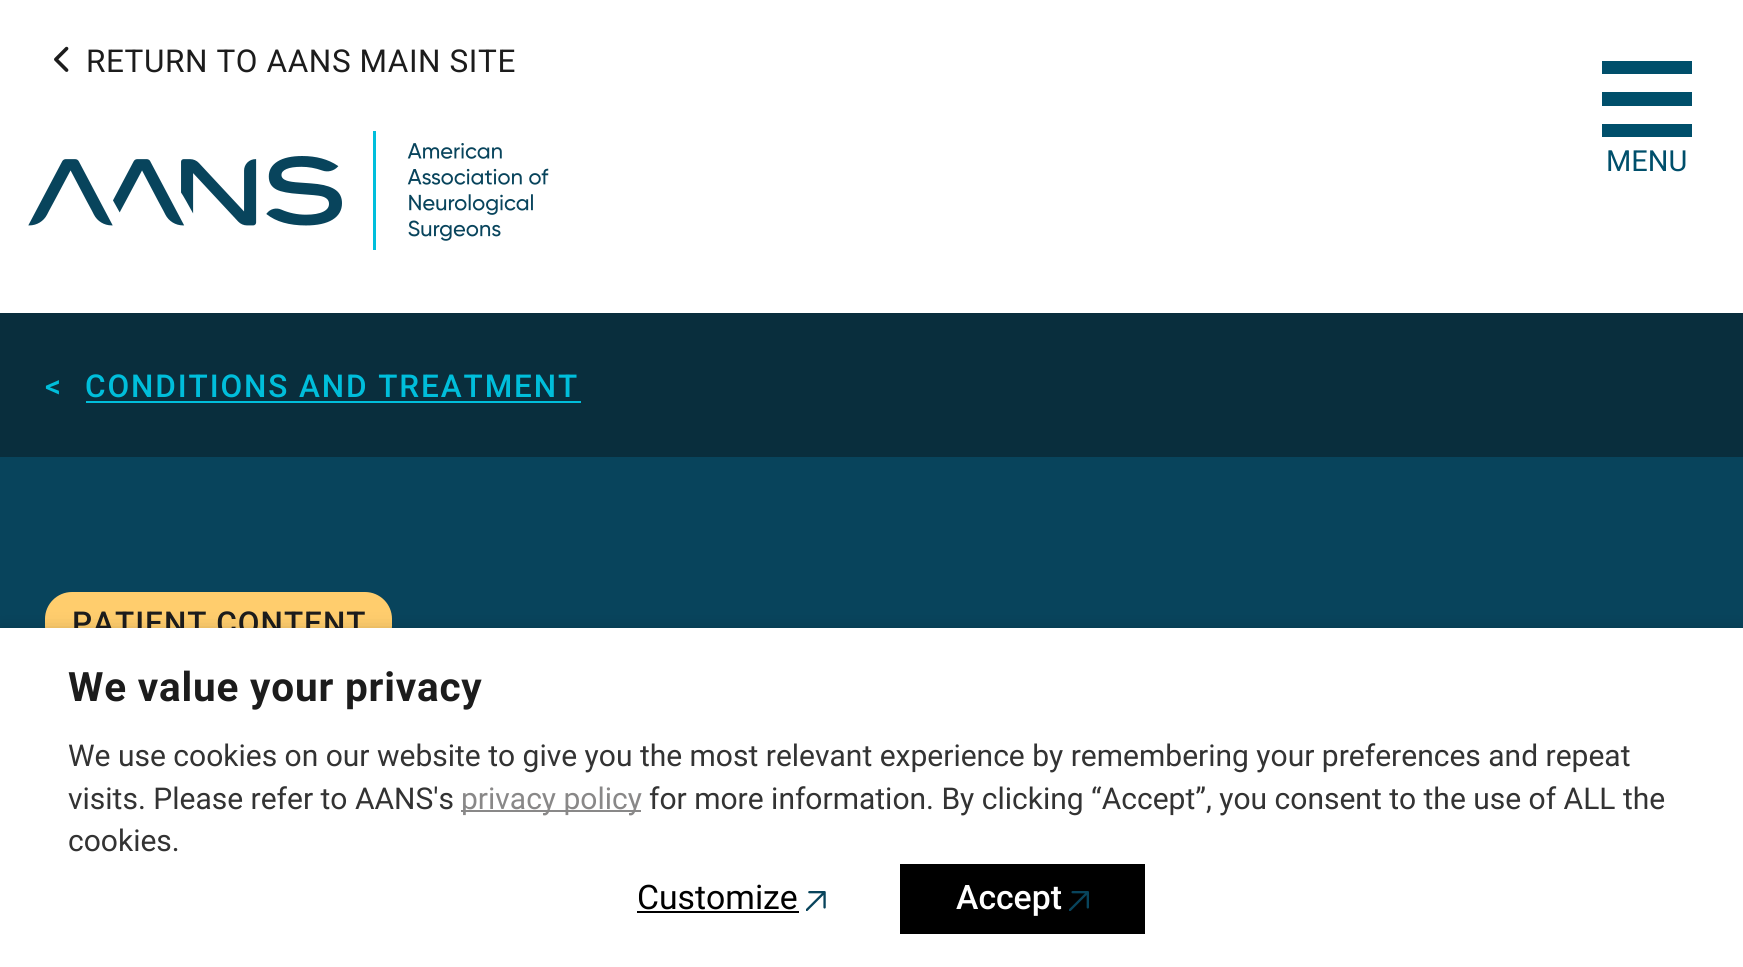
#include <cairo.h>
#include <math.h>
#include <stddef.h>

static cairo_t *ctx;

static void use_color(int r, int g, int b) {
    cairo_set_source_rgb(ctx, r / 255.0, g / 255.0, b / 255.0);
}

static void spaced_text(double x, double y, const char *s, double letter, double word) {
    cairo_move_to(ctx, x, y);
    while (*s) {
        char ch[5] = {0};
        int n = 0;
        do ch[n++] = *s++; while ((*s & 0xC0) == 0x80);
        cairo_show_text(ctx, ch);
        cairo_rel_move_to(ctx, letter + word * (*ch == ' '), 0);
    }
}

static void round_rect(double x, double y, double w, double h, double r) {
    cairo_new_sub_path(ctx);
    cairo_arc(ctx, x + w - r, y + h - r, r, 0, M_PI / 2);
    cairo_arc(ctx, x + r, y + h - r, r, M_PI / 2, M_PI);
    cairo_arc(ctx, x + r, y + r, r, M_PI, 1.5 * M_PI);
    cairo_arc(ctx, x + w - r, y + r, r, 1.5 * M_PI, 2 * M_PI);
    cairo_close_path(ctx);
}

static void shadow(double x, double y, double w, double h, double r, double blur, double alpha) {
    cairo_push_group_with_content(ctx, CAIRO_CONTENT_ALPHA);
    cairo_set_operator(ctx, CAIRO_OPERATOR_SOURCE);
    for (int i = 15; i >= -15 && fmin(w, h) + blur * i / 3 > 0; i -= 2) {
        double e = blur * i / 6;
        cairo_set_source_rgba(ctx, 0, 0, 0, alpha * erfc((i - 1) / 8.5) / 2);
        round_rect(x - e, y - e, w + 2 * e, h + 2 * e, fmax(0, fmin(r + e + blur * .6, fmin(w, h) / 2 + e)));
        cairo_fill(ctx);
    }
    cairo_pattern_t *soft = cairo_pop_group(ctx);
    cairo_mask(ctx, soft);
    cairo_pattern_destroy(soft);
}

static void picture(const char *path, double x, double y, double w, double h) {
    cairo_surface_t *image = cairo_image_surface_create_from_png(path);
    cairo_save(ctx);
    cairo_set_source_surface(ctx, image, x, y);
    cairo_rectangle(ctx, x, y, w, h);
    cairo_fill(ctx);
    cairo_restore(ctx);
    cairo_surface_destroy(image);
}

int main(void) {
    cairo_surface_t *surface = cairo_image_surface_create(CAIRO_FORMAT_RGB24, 1743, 967);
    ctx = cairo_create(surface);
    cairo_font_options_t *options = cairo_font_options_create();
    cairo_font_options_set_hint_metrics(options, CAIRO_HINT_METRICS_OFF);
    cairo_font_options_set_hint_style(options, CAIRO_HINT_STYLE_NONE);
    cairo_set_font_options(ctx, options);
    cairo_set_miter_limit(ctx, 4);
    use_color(255, 255, 255);
    cairo_paint(ctx);
    picture("img1.png", 54, 46, 15, 26);
    cairo_select_font_face(ctx, "Roboto", CAIRO_FONT_SLANT_NORMAL, CAIRO_FONT_WEIGHT_NORMAL);
    cairo_set_font_size(ctx, 31.5);
    use_color(28, 28, 28);
    spaced_text(86, 72, "RETURN TO AANS MAIN SITE", 0.6, 0);
    picture("img2.png", 28, 131, 521, 119);
    use_color(8, 68, 92);
    cairo_rectangle(ctx, 0, 457, 1743, 171);
    cairo_fill(ctx);
    use_color(9, 46, 61);
    cairo_rectangle(ctx, 0, 313, 1743, 144);
    cairo_fill(ctx);
    cairo_select_font_face(ctx, "Roboto Medium", CAIRO_FONT_SLANT_NORMAL, CAIRO_FONT_WEIGHT_NORMAL);
    use_color(0, 190, 219);
    spaced_text(45, 397, "<", 1.9, 0);
    spaced_text(85, 397, "CONDITIONS AND TREATMENT", 1.9, 0);
    cairo_rectangle(ctx, 86, 401, 495, 2);
    cairo_fill(ctx);
    use_color(255, 205, 109);
    round_rect(45, 592, 347, 61, 27);
    cairo_fill(ctx);
    use_color(28, 28, 28);
    spaced_text(72, 634, "PATIENT CONTENT", 1, 0);
    use_color(0, 79, 107);
    cairo_rectangle(ctx, 1602, 92, 90, 14);
    cairo_fill(ctx);
    cairo_rectangle(ctx, 1602, 61, 90, 13);
    cairo_fill(ctx);
    cairo_rectangle(ctx, 1602, 124, 90, 13);
    cairo_fill(ctx);
    cairo_select_font_face(ctx, "Roboto", CAIRO_FONT_SLANT_NORMAL, CAIRO_FONT_WEIGHT_NORMAL);
    cairo_set_font_size(ctx, 29);
    cairo_move_to(ctx, 1606, 171);
    cairo_show_text(ctx, "MENU");
    use_color(0, 0, 0);
    shadow(0, 639, 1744, 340, 0, 11, 0.5);
    use_color(255, 255, 255);
    cairo_rectangle(ctx, 0, 628, 1743, 339);
    cairo_fill(ctx);
    cairo_select_font_face(ctx, "Roboto", CAIRO_FONT_SLANT_NORMAL, CAIRO_FONT_WEIGHT_BOLD);
    cairo_set_font_size(ctx, 40.5);
    use_color(28, 28, 28);
    spaced_text(68, 701, "We value your privacy", 0.8, 0);
    cairo_select_font_face(ctx, "Roboto", CAIRO_FONT_SLANT_NORMAL, CAIRO_FONT_WEIGHT_NORMAL);
    cairo_set_font_size(ctx, 30);
    use_color(51, 51, 51);
    cairo_move_to(ctx, 68, 766);
    cairo_show_text(ctx, "We use cookies on our website to give you the most relevant experience by remembering your preferences and repeat");
    cairo_move_to(ctx, 68, 809);
    cairo_show_text(ctx, "visits. Please refer to AANS's");
    use_color(137, 136, 136);
    cairo_rectangle(ctx, 461, 810, 180, 2);
    cairo_fill(ctx);
    cairo_move_to(ctx, 461, 809);
    cairo_show_text(ctx, "privacy policy");
    use_color(51, 51, 51);
    cairo_move_to(ctx, 649, 809);
    cairo_show_text(ctx, "for more information. By clicking “Accept”, you consent to the use of ALL the");
    cairo_move_to(ctx, 68, 851);
    cairo_show_text(ctx, "cookies.");
    cairo_set_font_size(ctx, 33.75);
    use_color(0, 0, 0);
    cairo_move_to(ctx, 637, 909);
    cairo_show_text(ctx, "Customize");
    cairo_rectangle(ctx, 637, 911, 162, 2);
    cairo_fill(ctx);
    picture("img3.png", 806, 891, 20, 20);
    cairo_rectangle(ctx, 900, 864, 245, 70);
    cairo_fill(ctx);
    cairo_select_font_face(ctx, "Roboto Medium", CAIRO_FONT_SLANT_NORMAL, CAIRO_FONT_WEIGHT_NORMAL);
    use_color(255, 255, 255);
    cairo_move_to(ctx, 956, 909);
    cairo_show_text(ctx, "Accept");
    picture("img4.png", 1069, 891, 20, 20);
    cairo_surface_write_to_png(surface, "result.png");
    cairo_font_options_destroy(options);
    cairo_destroy(ctx);
    cairo_surface_destroy(surface);
    return 0;
}
